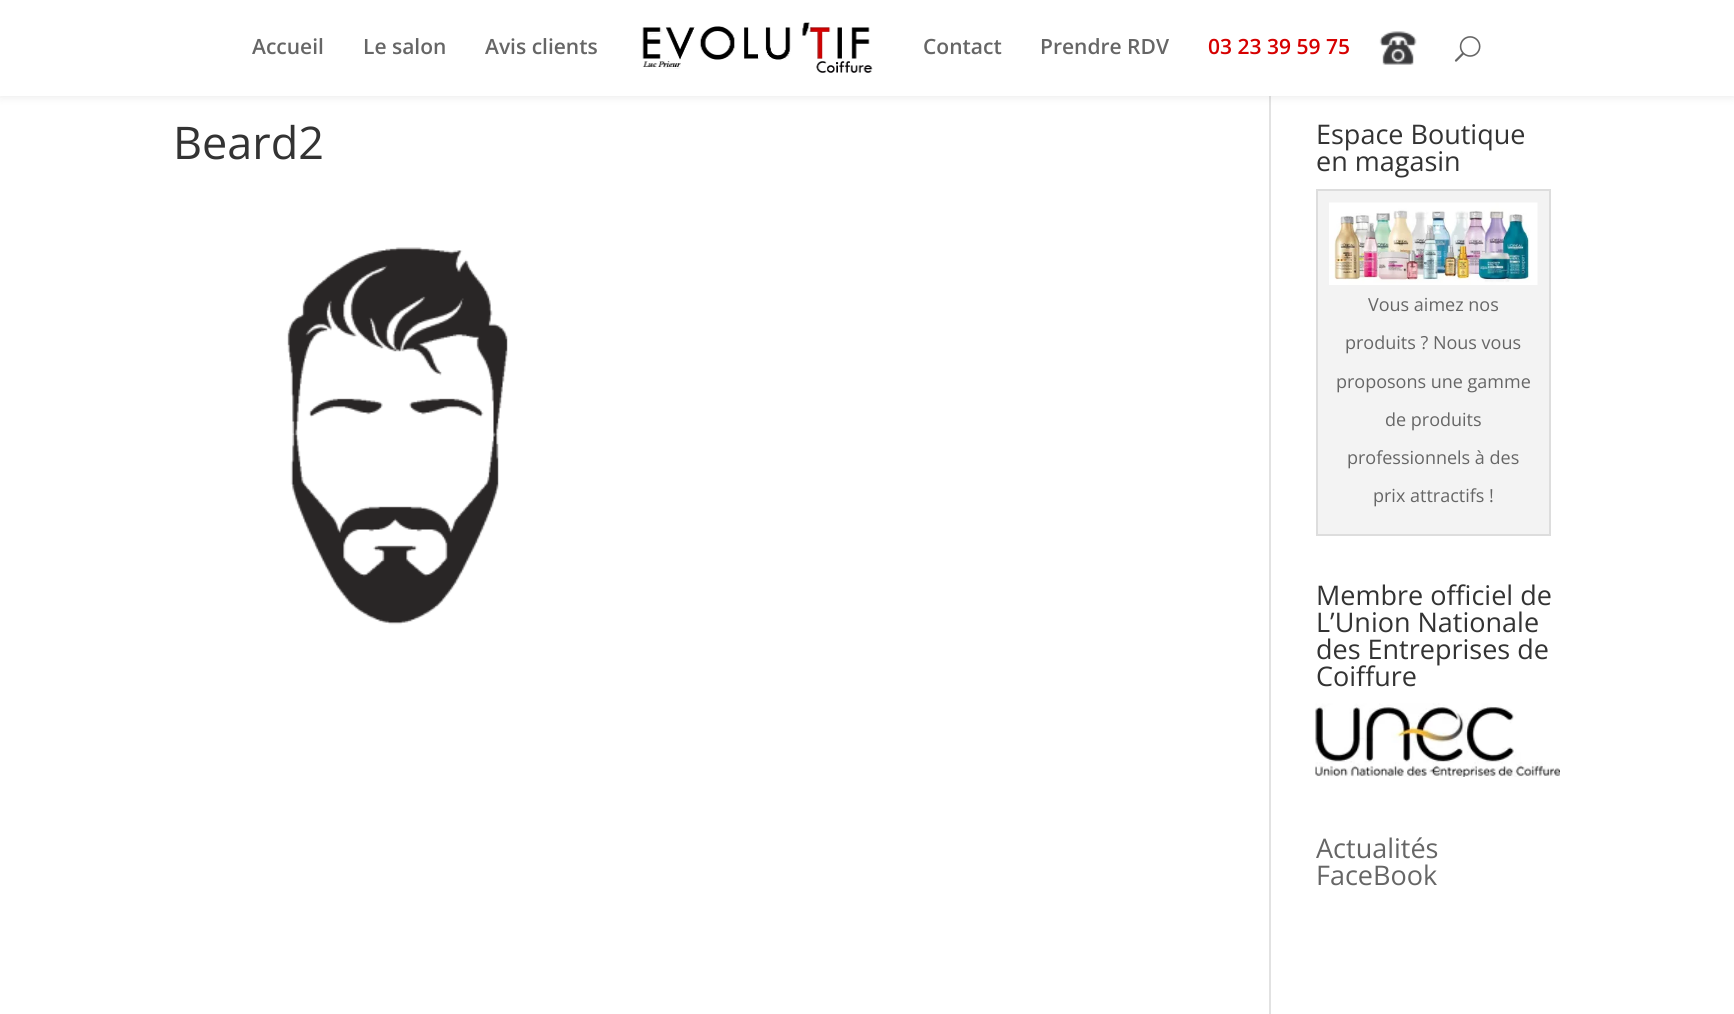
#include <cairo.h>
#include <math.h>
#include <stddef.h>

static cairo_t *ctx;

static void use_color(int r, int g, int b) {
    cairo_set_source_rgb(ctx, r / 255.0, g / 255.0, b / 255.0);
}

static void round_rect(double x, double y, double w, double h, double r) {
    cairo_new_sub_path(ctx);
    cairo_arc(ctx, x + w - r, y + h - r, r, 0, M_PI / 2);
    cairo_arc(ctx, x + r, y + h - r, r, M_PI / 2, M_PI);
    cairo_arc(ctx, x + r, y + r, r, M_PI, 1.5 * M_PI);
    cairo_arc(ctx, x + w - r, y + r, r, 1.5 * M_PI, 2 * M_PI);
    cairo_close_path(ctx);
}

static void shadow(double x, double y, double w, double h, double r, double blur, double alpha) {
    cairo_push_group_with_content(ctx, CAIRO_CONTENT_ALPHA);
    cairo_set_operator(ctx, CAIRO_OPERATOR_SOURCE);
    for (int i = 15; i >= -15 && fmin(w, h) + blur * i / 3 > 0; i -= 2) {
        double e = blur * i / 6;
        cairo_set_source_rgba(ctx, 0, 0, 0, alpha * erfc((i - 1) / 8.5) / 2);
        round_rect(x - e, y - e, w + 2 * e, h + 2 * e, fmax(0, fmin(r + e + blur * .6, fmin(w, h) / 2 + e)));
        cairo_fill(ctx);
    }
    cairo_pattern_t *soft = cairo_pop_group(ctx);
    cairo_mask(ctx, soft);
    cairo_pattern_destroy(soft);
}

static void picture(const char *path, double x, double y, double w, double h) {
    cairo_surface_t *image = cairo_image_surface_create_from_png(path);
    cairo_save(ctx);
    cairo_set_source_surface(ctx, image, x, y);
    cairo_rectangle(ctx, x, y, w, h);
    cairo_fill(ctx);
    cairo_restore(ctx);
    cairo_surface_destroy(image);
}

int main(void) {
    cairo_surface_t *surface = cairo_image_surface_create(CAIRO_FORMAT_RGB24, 1734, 1014);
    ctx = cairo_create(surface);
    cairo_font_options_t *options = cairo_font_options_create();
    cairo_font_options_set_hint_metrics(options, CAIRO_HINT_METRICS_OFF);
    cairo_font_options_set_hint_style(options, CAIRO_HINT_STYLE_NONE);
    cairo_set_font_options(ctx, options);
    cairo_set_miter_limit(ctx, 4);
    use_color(255, 255, 255);
    cairo_paint(ctx);
    use_color(226, 226, 226);
    cairo_rectangle(ctx, 1269, 96, 2, 918);
    cairo_fill(ctx);
    use_color(0, 0, 0);
    shadow(0, 0, 1734, 96, 0, 5, 0.1);
    use_color(255, 255, 255);
    cairo_rectangle(ctx, 0, 0, 1734, 96);
    cairo_fill(ctx);
    cairo_select_font_face(ctx, "Open Sans SemiBold", CAIRO_FONT_SLANT_NORMAL, CAIRO_FONT_WEIGHT_NORMAL);
    cairo_set_font_size(ctx, 21);
    use_color(102, 102, 102);
    cairo_move_to(ctx, 252, 54);
    cairo_show_text(ctx, "Accueil");
    cairo_move_to(ctx, 363, 54);
    cairo_show_text(ctx, "Le salon");
    cairo_move_to(ctx, 485, 54);
    cairo_show_text(ctx, "Avis clients");
    picture("img1.png", 642, 22, 231, 51);
    cairo_move_to(ctx, 923, 54);
    cairo_show_text(ctx, "Contact");
    cairo_move_to(ctx, 1040, 54);
    cairo_show_text(ctx, "Prendre RDV");
    use_color(214, 0, 0);
    cairo_move_to(ctx, 1208, 54);
    cairo_show_text(ctx, "03 23 39 59 75");
    picture("img2.png", 1379, 31, 38, 34);
    picture("img3.png", 1454, 36, 27, 26);
    cairo_select_font_face(ctx, "Open Sans", CAIRO_FONT_SLANT_NORMAL, CAIRO_FONT_WEIGHT_NORMAL);
    cairo_set_font_size(ctx, 45);
    use_color(51, 51, 51);
    cairo_move_to(ctx, 173, 159);
    cairo_show_text(ctx, "Beard2");
    picture("img4.png", 287, 247, 221, 378);
    cairo_set_font_size(ctx, 27);
    cairo_move_to(ctx, 1316, 144);
    cairo_show_text(ctx, "Espace Boutique");
    cairo_move_to(ctx, 1316, 171);
    cairo_show_text(ctx, "en magasin");
    use_color(243, 243, 243);
    cairo_rectangle(ctx, 1317, 190, 233, 345);
    cairo_fill_preserve(ctx);
    use_color(221, 221, 221);
    cairo_stroke(ctx);
    picture("img5.png", 1329, 202, 209, 83);
    cairo_set_font_size(ctx, 18);
    use_color(102, 102, 102);
    cairo_move_to(ctx, 1368, 311);
    cairo_show_text(ctx, "Vous aimez nos");
    cairo_move_to(ctx, 1345, 349);
    cairo_show_text(ctx, "produits ? Nous vous");
    cairo_move_to(ctx, 1336, 388);
    cairo_show_text(ctx, "proposons une gamme");
    cairo_move_to(ctx, 1385, 426);
    cairo_show_text(ctx, "de produits");
    cairo_move_to(ctx, 1347, 464);
    cairo_show_text(ctx, "professionnels à des");
    cairo_move_to(ctx, 1373, 502);
    cairo_show_text(ctx, "prix attractifs !");
    cairo_set_font_size(ctx, 27);
    use_color(51, 51, 51);
    cairo_move_to(ctx, 1316, 605);
    cairo_show_text(ctx, "Membre officiel de");
    cairo_move_to(ctx, 1316, 632);
    cairo_show_text(ctx, "L’Union Nationale");
    cairo_move_to(ctx, 1316, 659);
    cairo_show_text(ctx, "des Entreprises de");
    cairo_move_to(ctx, 1316, 686);
    cairo_show_text(ctx, "Coiffure");
    picture("img6.png", 1315, 703, 245, 74);
    use_color(102, 102, 102);
    cairo_move_to(ctx, 1316, 858);
    cairo_show_text(ctx, "Actualités");
    cairo_move_to(ctx, 1316, 885);
    cairo_show_text(ctx, "FaceBook");
    cairo_surface_write_to_png(surface, "result.png");
    cairo_font_options_destroy(options);
    cairo_destroy(ctx);
    cairo_surface_destroy(surface);
    return 0;
}
